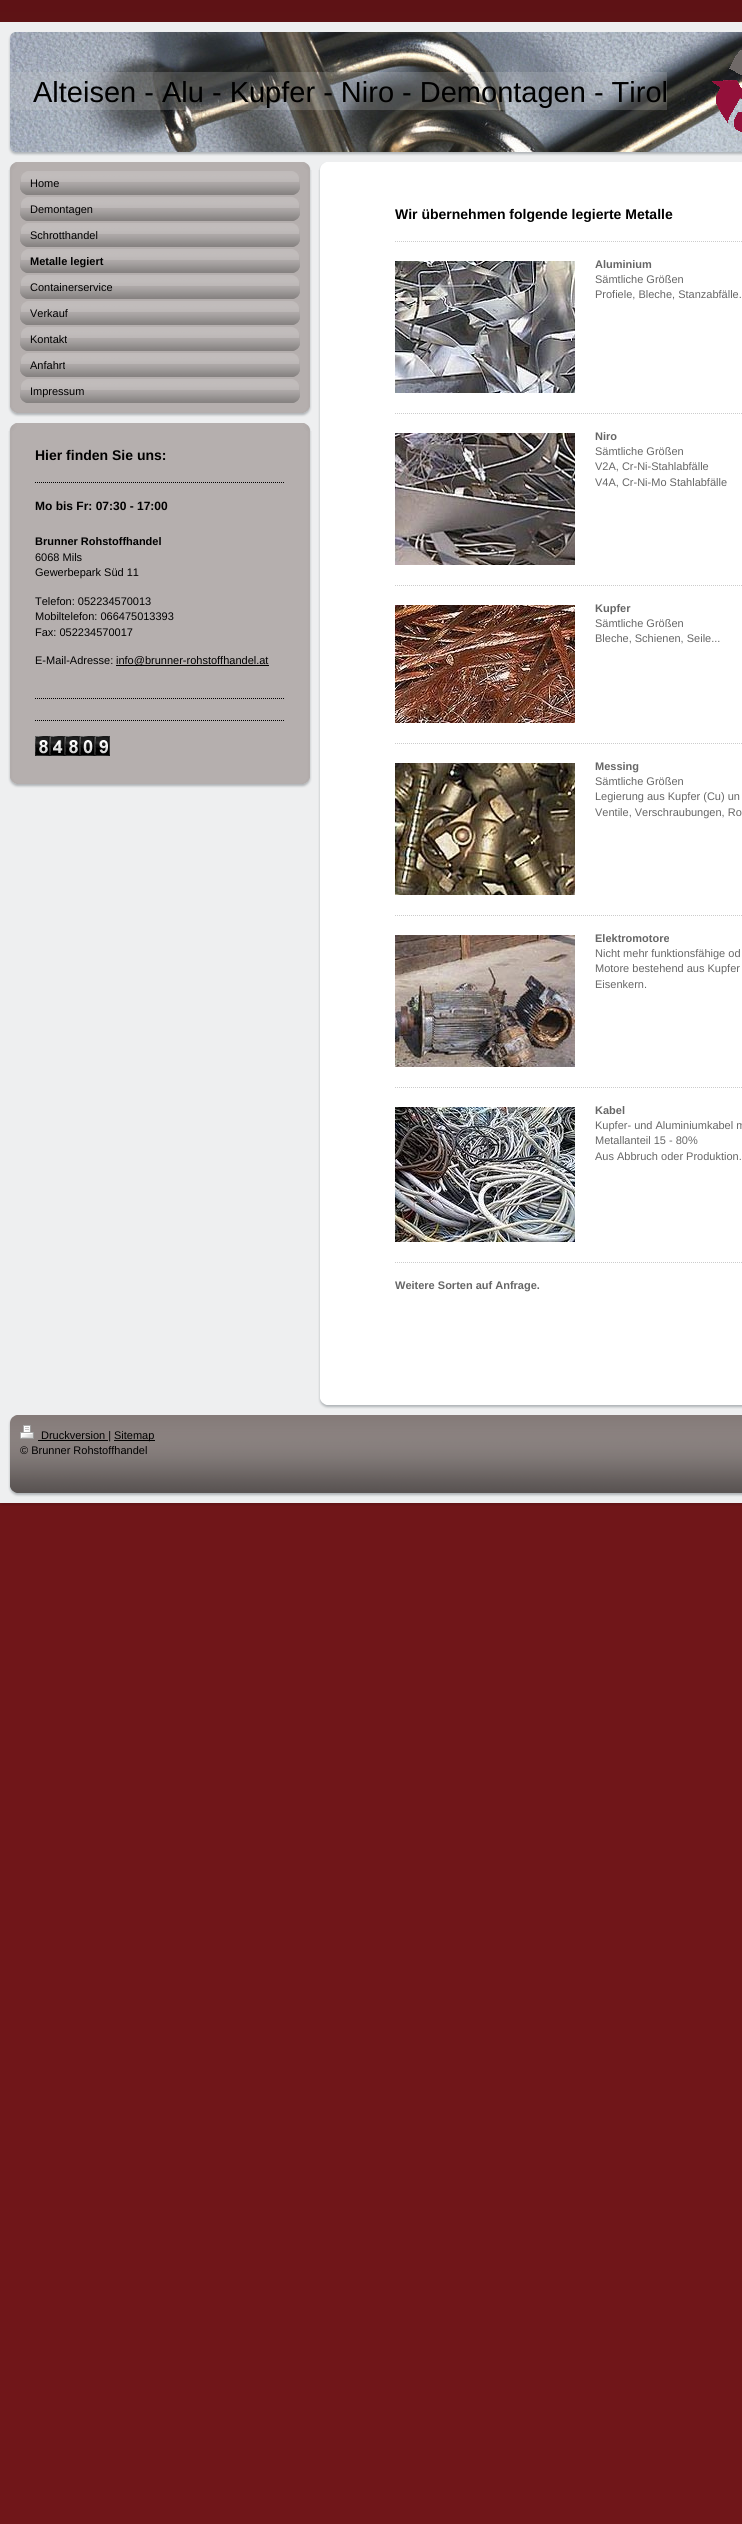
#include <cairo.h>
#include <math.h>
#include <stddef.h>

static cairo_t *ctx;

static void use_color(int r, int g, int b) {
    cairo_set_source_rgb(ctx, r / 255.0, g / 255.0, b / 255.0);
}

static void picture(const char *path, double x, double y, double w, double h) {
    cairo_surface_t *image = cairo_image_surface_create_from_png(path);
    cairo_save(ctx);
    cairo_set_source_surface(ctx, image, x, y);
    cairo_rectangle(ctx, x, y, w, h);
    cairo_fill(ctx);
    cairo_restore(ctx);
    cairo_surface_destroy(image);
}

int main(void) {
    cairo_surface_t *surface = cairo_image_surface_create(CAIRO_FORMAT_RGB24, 742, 2524);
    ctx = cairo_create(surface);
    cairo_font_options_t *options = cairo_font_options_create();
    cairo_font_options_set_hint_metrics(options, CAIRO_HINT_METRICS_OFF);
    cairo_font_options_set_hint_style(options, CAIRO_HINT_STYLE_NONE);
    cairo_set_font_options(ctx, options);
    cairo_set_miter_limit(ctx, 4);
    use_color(112, 22, 25);
    cairo_paint(ctx);
    picture("img1.png", 0, 0, 742, 22);
    picture("img2.png", 0, 1503, 742, 3);
    use_color(238, 239, 240);
    cairo_rectangle(ctx, 0, 22, 742, 1481);
    cairo_fill(ctx);
    picture("img3.png", 8, 152, 734, 4);
    picture("img5.png", 10, 32, 732, 120);
    cairo_set_source_rgba(ctx, 0.8, 0.8, 0.8, 0.22);
    cairo_rectangle(ctx, 10, 72, 657, 38);
    cairo_fill(ctx);
    picture("img4.png", 0, 32, 15, 120);
    picture("img6.png", 712, 50, 30, 82);
    cairo_select_font_face(ctx, "Liberation Sans", CAIRO_FONT_SLANT_NORMAL, CAIRO_FONT_WEIGHT_NORMAL);
    cairo_set_font_size(ctx, 29);
    use_color(0, 0, 0);
    cairo_move_to(ctx, 33, 102);
    cairo_show_text(ctx, "Alteisen - Alu - Kupfer - Niro - Demontagen - Tirol");
    use_color(132, 122, 120);
    cairo_rectangle(ctx, 10, 162, 300, 251);
    cairo_fill(ctx);
    picture("img7.png", 9, 162, 302, 8);
    picture("img8.png", 8, 170, 304, 237);
    picture("img9.png", 20, 171, 280, 24);
    cairo_set_font_size(ctx, 11);
    use_color(0, 0, 0);
    cairo_move_to(ctx, 30, 187);
    cairo_show_text(ctx, "Home");
    picture("img9.png", 20, 197, 280, 24);
    cairo_move_to(ctx, 30, 213);
    cairo_show_text(ctx, "Demontagen");
    picture("img9.png", 20, 223, 280, 24);
    cairo_move_to(ctx, 30, 239);
    cairo_show_text(ctx, "Schrotthandel");
    picture("img9.png", 20, 249, 280, 24);
    cairo_select_font_face(ctx, "Liberation Sans", CAIRO_FONT_SLANT_NORMAL, CAIRO_FONT_WEIGHT_BOLD);
    cairo_move_to(ctx, 30, 265);
    cairo_show_text(ctx, "Metalle legiert");
    picture("img9.png", 20, 275, 280, 24);
    cairo_select_font_face(ctx, "Liberation Sans", CAIRO_FONT_SLANT_NORMAL, CAIRO_FONT_WEIGHT_NORMAL);
    cairo_move_to(ctx, 30, 291);
    cairo_show_text(ctx, "Containerservice");
    picture("img9.png", 20, 301, 280, 24);
    cairo_move_to(ctx, 30, 317);
    cairo_show_text(ctx, "Verkauf");
    picture("img9.png", 20, 327, 280, 24);
    cairo_move_to(ctx, 30, 343);
    cairo_show_text(ctx, "Kontakt");
    picture("img9.png", 20, 353, 280, 24);
    cairo_move_to(ctx, 30, 369);
    cairo_show_text(ctx, "Anfahrt");
    picture("img9.png", 20, 379, 280, 24);
    cairo_move_to(ctx, 30, 395);
    cairo_show_text(ctx, "Impressum");
    picture("img10.png", 8, 407, 304, 10);
    use_color(132, 122, 120);
    cairo_rectangle(ctx, 10, 423, 300, 361);
    cairo_fill(ctx);
    picture("img7.png", 9, 423, 302, 8);
    picture("img11.png", 8, 431, 304, 347);
    cairo_select_font_face(ctx, "Liberation Sans", CAIRO_FONT_SLANT_NORMAL, CAIRO_FONT_WEIGHT_BOLD);
    cairo_set_font_size(ctx, 14);
    use_color(0, 0, 0);
    cairo_move_to(ctx, 35, 460);
    cairo_show_text(ctx, "Hier finden Sie uns:");
    cairo_new_path(ctx);
    cairo_move_to(ctx, 35, 482.5);
    cairo_line_to(ctx, 285, 482.5);
    cairo_set_line_width(ctx, 1);
    cairo_set_dash(ctx, (double[]){1, 1}, 2, 0);
    cairo_stroke(ctx);
    cairo_set_font_size(ctx, 12);
    cairo_move_to(ctx, 35, 510);
    cairo_show_text(ctx, "Mo bis Fr: 07:30 - 17:00");
    cairo_set_font_size(ctx, 11);
    cairo_move_to(ctx, 35, 545);
    cairo_show_text(ctx, "Brunner Rohstoffhandel");
    cairo_select_font_face(ctx, "Liberation Sans", CAIRO_FONT_SLANT_NORMAL, CAIRO_FONT_WEIGHT_NORMAL);
    cairo_move_to(ctx, 35, 561);
    cairo_show_text(ctx, "6068 Mils");
    cairo_move_to(ctx, 35, 576);
    cairo_show_text(ctx, "Gewerbepark Süd 11");
    cairo_move_to(ctx, 35, 605);
    cairo_show_text(ctx, "Telefon: 052234570013");
    cairo_move_to(ctx, 35, 620);
    cairo_show_text(ctx, "Mobiltelefon: 066475013393");
    cairo_move_to(ctx, 35, 636);
    cairo_show_text(ctx, "Fax: 052234570017");
    cairo_move_to(ctx, 35, 664);
    cairo_show_text(ctx, "E-Mail-Adresse:");
    cairo_rectangle(ctx, 116, 665, 153, 1);
    cairo_fill(ctx);
    cairo_move_to(ctx, 116, 664);
    cairo_show_text(ctx, "info@brunner-rohstoffhandel.at");
    cairo_new_path(ctx);
    cairo_move_to(ctx, 35, 698.5);
    cairo_line_to(ctx, 285, 698.5);
    cairo_stroke(ctx);
    cairo_new_path(ctx);
    cairo_move_to(ctx, 35, 720.5);
    cairo_line_to(ctx, 285, 720.5);
    cairo_stroke(ctx);
    picture("img12.png", 35, 736, 15, 20);
    picture("img13.png", 50, 736, 15, 20);
    picture("img12.png", 65, 736, 15, 20);
    picture("img14.png", 80, 736, 15, 20);
    picture("img15.png", 95, 736, 15, 20);
    picture("img10.png", 8, 778, 304, 10);
    use_color(255, 255, 255);
    cairo_rectangle(ctx, 320, 162, 422, 1236);
    cairo_fill(ctx);
    picture("img16.png", 319, 162, 7, 8);
    picture("img17.png", 318, 170, 2, 1228);
    cairo_select_font_face(ctx, "Liberation Sans", CAIRO_FONT_SLANT_NORMAL, CAIRO_FONT_WEIGHT_BOLD);
    cairo_set_font_size(ctx, 14);
    use_color(0, 0, 0);
    cairo_move_to(ctx, 395, 219);
    cairo_show_text(ctx, "Wir übernehmen folgende legierte Metalle");
    cairo_new_path(ctx);
    cairo_move_to(ctx, 395, 241.5);
    cairo_line_to(ctx, 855, 241.5);
    use_color(204, 204, 204);
    cairo_stroke(ctx);
    picture("img18.png", 395, 261, 180, 132);
    cairo_set_font_size(ctx, 11);
    use_color(102, 102, 102);
    cairo_move_to(ctx, 595, 268);
    cairo_show_text(ctx, "Aluminium");
    cairo_select_font_face(ctx, "Liberation Sans", CAIRO_FONT_SLANT_NORMAL, CAIRO_FONT_WEIGHT_NORMAL);
    cairo_move_to(ctx, 595, 283);
    cairo_show_text(ctx, "Sämtliche Größen");
    cairo_move_to(ctx, 595, 298);
    cairo_show_text(ctx, "Profiele, Bleche, Stanzabfälle.");
    cairo_new_path(ctx);
    cairo_move_to(ctx, 395, 413.5);
    cairo_line_to(ctx, 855, 413.5);
    use_color(204, 204, 204);
    cairo_stroke(ctx);
    picture("img19.png", 395, 433, 180, 132);
    cairo_select_font_face(ctx, "Liberation Sans", CAIRO_FONT_SLANT_NORMAL, CAIRO_FONT_WEIGHT_BOLD);
    use_color(102, 102, 102);
    cairo_move_to(ctx, 595, 440);
    cairo_show_text(ctx, "Niro");
    cairo_select_font_face(ctx, "Liberation Sans", CAIRO_FONT_SLANT_NORMAL, CAIRO_FONT_WEIGHT_NORMAL);
    cairo_move_to(ctx, 595, 455);
    cairo_show_text(ctx, "Sämtliche Größen");
    cairo_move_to(ctx, 595, 470);
    cairo_show_text(ctx, "V2A, Cr-Ni-Stahlabfälle");
    cairo_move_to(ctx, 595, 486);
    cairo_show_text(ctx, "V4A, Cr-Ni-Mo Stahlabfälle");
    cairo_new_path(ctx);
    cairo_move_to(ctx, 395, 585.5);
    cairo_line_to(ctx, 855, 585.5);
    use_color(204, 204, 204);
    cairo_stroke(ctx);
    picture("img20.png", 395, 605, 180, 118);
    cairo_select_font_face(ctx, "Liberation Sans", CAIRO_FONT_SLANT_NORMAL, CAIRO_FONT_WEIGHT_BOLD);
    use_color(102, 102, 102);
    cairo_move_to(ctx, 595, 612);
    cairo_show_text(ctx, "Kupfer");
    cairo_select_font_face(ctx, "Liberation Sans", CAIRO_FONT_SLANT_NORMAL, CAIRO_FONT_WEIGHT_NORMAL);
    cairo_move_to(ctx, 595, 627);
    cairo_show_text(ctx, "Sämtliche Größen");
    cairo_move_to(ctx, 595, 642);
    cairo_show_text(ctx, "Bleche, Schienen, Seile...");
    cairo_new_path(ctx);
    cairo_move_to(ctx, 395, 743.5);
    cairo_line_to(ctx, 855, 743.5);
    use_color(204, 204, 204);
    cairo_stroke(ctx);
    picture("img21.png", 395, 763, 180, 132);
    cairo_select_font_face(ctx, "Liberation Sans", CAIRO_FONT_SLANT_NORMAL, CAIRO_FONT_WEIGHT_BOLD);
    use_color(102, 102, 102);
    cairo_move_to(ctx, 595, 770);
    cairo_show_text(ctx, "Messing");
    cairo_select_font_face(ctx, "Liberation Sans", CAIRO_FONT_SLANT_NORMAL, CAIRO_FONT_WEIGHT_NORMAL);
    cairo_move_to(ctx, 595, 785);
    cairo_show_text(ctx, "Sämtliche Größen");
    cairo_move_to(ctx, 595, 800);
    cairo_show_text(ctx, "Legierung aus Kupfer (Cu) un");
    cairo_move_to(ctx, 595, 816);
    cairo_show_text(ctx, "Ventile, Verschraubungen, Ro");
    cairo_new_path(ctx);
    cairo_move_to(ctx, 395, 915.5);
    cairo_line_to(ctx, 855, 915.5);
    use_color(204, 204, 204);
    cairo_stroke(ctx);
    picture("img22.png", 395, 935, 180, 132);
    cairo_select_font_face(ctx, "Liberation Sans", CAIRO_FONT_SLANT_NORMAL, CAIRO_FONT_WEIGHT_BOLD);
    use_color(102, 102, 102);
    cairo_move_to(ctx, 595, 942);
    cairo_show_text(ctx, "Elektromotore");
    cairo_select_font_face(ctx, "Liberation Sans", CAIRO_FONT_SLANT_NORMAL, CAIRO_FONT_WEIGHT_NORMAL);
    cairo_move_to(ctx, 595, 957);
    cairo_show_text(ctx, "Nicht mehr funktionsfähige od");
    cairo_move_to(ctx, 595, 972);
    cairo_show_text(ctx, "Motore bestehend aus Kupfer");
    cairo_move_to(ctx, 595, 988);
    cairo_show_text(ctx, "Eisenkern.");
    cairo_new_path(ctx);
    cairo_move_to(ctx, 395, 1087.5);
    cairo_line_to(ctx, 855, 1087.5);
    use_color(204, 204, 204);
    cairo_stroke(ctx);
    picture("img23.png", 395, 1107, 180, 135);
    cairo_select_font_face(ctx, "Liberation Sans", CAIRO_FONT_SLANT_NORMAL, CAIRO_FONT_WEIGHT_BOLD);
    use_color(102, 102, 102);
    cairo_move_to(ctx, 595, 1114);
    cairo_show_text(ctx, "Kabel");
    cairo_select_font_face(ctx, "Liberation Sans", CAIRO_FONT_SLANT_NORMAL, CAIRO_FONT_WEIGHT_NORMAL);
    cairo_move_to(ctx, 595, 1129);
    cairo_show_text(ctx, "Kupfer- und Aluminiumkabel m");
    cairo_move_to(ctx, 595, 1144);
    cairo_show_text(ctx, "Metallanteil 15 - 80%");
    cairo_move_to(ctx, 595, 1160);
    cairo_show_text(ctx, "Aus Abbruch oder Produktion.");
    cairo_new_path(ctx);
    cairo_move_to(ctx, 395, 1262.5);
    cairo_line_to(ctx, 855, 1262.5);
    use_color(204, 204, 204);
    cairo_stroke(ctx);
    cairo_select_font_face(ctx, "Liberation Sans", CAIRO_FONT_SLANT_NORMAL, CAIRO_FONT_WEIGHT_BOLD);
    use_color(102, 102, 102);
    cairo_move_to(ctx, 395, 1289);
    cairo_show_text(ctx, "Weitere Sorten auf Anfrage.");
    picture("img24.png", 318, 1398, 424, 11);
    use_color(132, 122, 120);
    cairo_rectangle(ctx, 10, 1415, 732, 78);
    cairo_fill(ctx);
    picture("img25.png", 8, 1415, 734, 82);
    picture("img26.png", 20, 1425, 14, 14);
    use_color(0, 0, 0);
    cairo_rectangle(ctx, 38, 1440, 70, 1);
    cairo_fill(ctx);
    cairo_select_font_face(ctx, "Liberation Sans", CAIRO_FONT_SLANT_NORMAL, CAIRO_FONT_WEIGHT_NORMAL);
    cairo_move_to(ctx, 41, 1439);
    cairo_show_text(ctx, "Druckversion |");
    cairo_rectangle(ctx, 114, 1440, 41, 1);
    cairo_fill(ctx);
    cairo_move_to(ctx, 114, 1439);
    cairo_show_text(ctx, "Sitemap");
    cairo_move_to(ctx, 20, 1454);
    cairo_show_text(ctx, "© Brunner Rohstoffhandel");
    cairo_surface_write_to_png(surface, "result.png");
    cairo_font_options_destroy(options);
    cairo_destroy(ctx);
    cairo_surface_destroy(surface);
    return 0;
}
